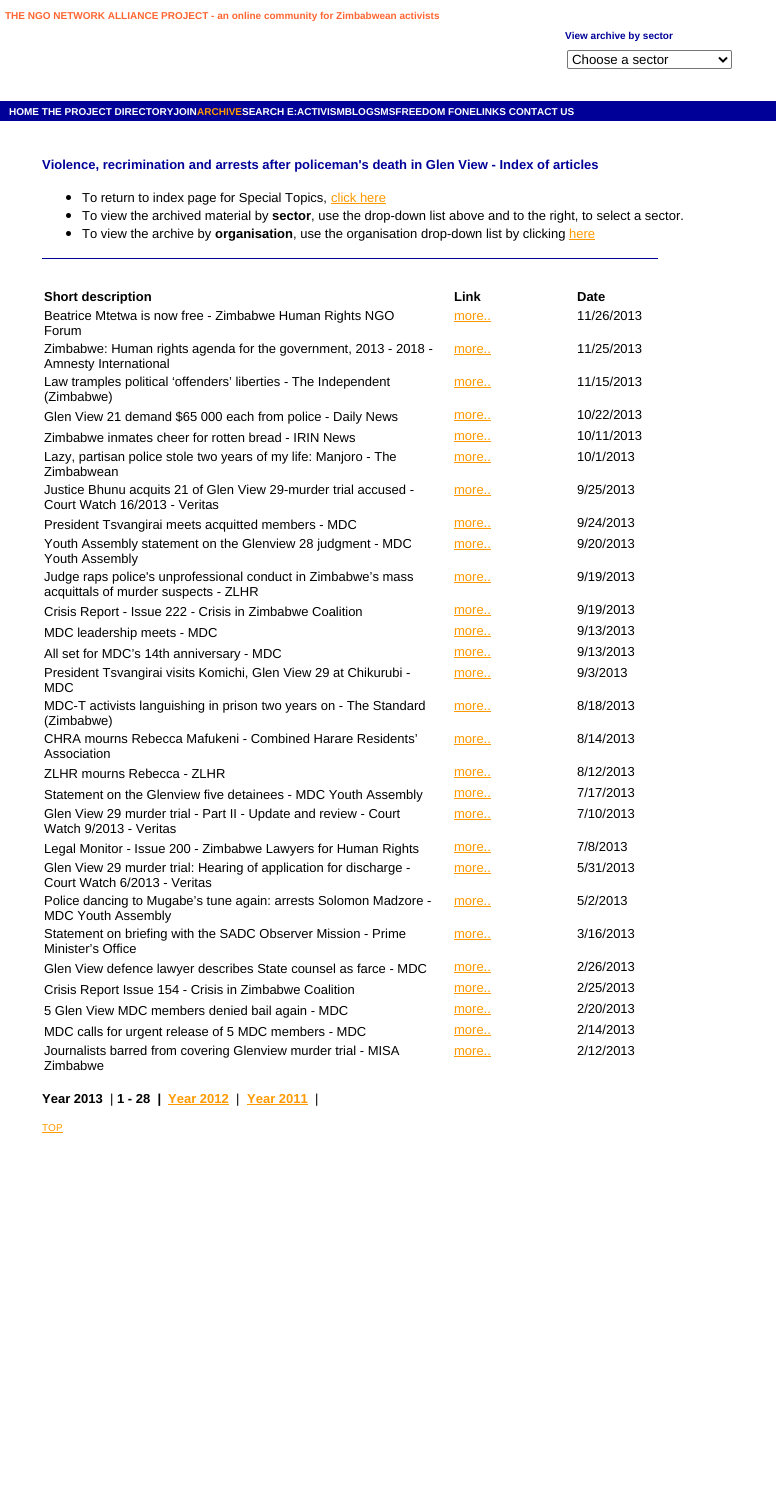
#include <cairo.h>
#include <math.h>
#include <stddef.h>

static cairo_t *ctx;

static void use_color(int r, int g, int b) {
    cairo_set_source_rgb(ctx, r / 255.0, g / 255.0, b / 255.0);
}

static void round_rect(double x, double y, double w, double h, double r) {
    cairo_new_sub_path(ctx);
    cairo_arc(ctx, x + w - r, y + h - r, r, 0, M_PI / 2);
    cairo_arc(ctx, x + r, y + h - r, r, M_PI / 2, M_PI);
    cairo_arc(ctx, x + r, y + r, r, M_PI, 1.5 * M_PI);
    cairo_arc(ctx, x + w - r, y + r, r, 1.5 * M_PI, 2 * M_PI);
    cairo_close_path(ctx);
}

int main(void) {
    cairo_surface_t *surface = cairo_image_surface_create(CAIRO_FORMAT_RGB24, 776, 1493);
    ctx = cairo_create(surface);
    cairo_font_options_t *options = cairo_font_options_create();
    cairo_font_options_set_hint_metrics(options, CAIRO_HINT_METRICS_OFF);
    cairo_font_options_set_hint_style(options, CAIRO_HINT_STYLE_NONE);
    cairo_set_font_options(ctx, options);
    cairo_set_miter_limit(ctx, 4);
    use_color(255, 255, 255);
    cairo_paint(ctx);
    cairo_select_font_face(ctx, "Liberation Sans", CAIRO_FONT_SLANT_NORMAL, CAIRO_FONT_WEIGHT_BOLD);
    cairo_set_font_size(ctx, 10);
    use_color(255, 102, 51);
    cairo_move_to(ctx, 5, 19);
    cairo_show_text(ctx, "THE NGO NETWORK ALLIANCE PROJECT - an online community for Zimbabwean activists");
    use_color(0, 0, 153);
    cairo_move_to(ctx, 565, 39);
    cairo_show_text(ctx, "View archive by sector");
    round_rect(567.5, 50.5, 164, 18, 1.5);
    use_color(118, 118, 118);
    cairo_set_line_width(ctx, 1);
    cairo_stroke(ctx);
    cairo_new_path(ctx);
    cairo_move_to(ctx, 719, 57.5);
    cairo_line_to(ctx, 723, 61.5);
    cairo_line_to(ctx, 727, 57.5);
    use_color(0, 0, 0);
    cairo_set_line_width(ctx, 2);
    cairo_stroke(ctx);
    cairo_select_font_face(ctx, "Liberation Sans", CAIRO_FONT_SLANT_NORMAL, CAIRO_FONT_WEIGHT_NORMAL);
    cairo_set_font_size(ctx, 13.25);
    cairo_move_to(ctx, 572, 64);
    cairo_show_text(ctx, "Choose a sector");
    use_color(0, 0, 153);
    cairo_rectangle(ctx, 0, 101, 776, 20);
    cairo_fill(ctx);
    cairo_select_font_face(ctx, "Liberation Sans", CAIRO_FONT_SLANT_NORMAL, CAIRO_FONT_WEIGHT_BOLD);
    cairo_set_font_size(ctx, 10);
    use_color(255, 255, 255);
    cairo_move_to(ctx, 9, 115);
    cairo_show_text(ctx, "HOME THE PROJECT DIRECTORYJOIN");
    use_color(255, 153, 0);
    cairo_move_to(ctx, 197, 115);
    cairo_show_text(ctx, "ARCHIVE");
    use_color(255, 255, 255);
    cairo_move_to(ctx, 242, 115);
    cairo_show_text(ctx, "SEARCH E:ACTIVISMBLOGSMSFREEDOM FONELINKS CONTACT US");
    cairo_set_font_size(ctx, 13);
    use_color(0, 0, 153);
    cairo_move_to(ctx, 42, 169);
    cairo_show_text(ctx, "Violence, recrimination and arrests after policeman's death in Glen View - Index of articles");
    use_color(0, 0, 0);
    cairo_new_path(ctx);
    cairo_arc(ctx, 68.5, 197.5, 2.5, 0, 2 * M_PI);
    cairo_fill(ctx);
    cairo_select_font_face(ctx, "Liberation Sans", CAIRO_FONT_SLANT_NORMAL, CAIRO_FONT_WEIGHT_NORMAL);
    cairo_move_to(ctx, 82, 202);
    cairo_show_text(ctx, "To return to index page for Special Topics,");
    use_color(255, 153, 0);
    cairo_move_to(ctx, 331, 202);
    cairo_show_text(ctx, "click here");
    cairo_rectangle(ctx, 331, 203, 55, 1);
    cairo_fill(ctx);
    use_color(0, 0, 0);
    cairo_arc(ctx, 68.5, 215.5, 2.5, 0, 2 * M_PI);
    cairo_fill(ctx);
    cairo_move_to(ctx, 82, 220);
    cairo_show_text(ctx, "To view the archived material by");
    cairo_select_font_face(ctx, "Liberation Sans", CAIRO_FONT_SLANT_NORMAL, CAIRO_FONT_WEIGHT_BOLD);
    cairo_move_to(ctx, 272, 220);
    cairo_show_text(ctx, "sector");
    cairo_select_font_face(ctx, "Liberation Sans", CAIRO_FONT_SLANT_NORMAL, CAIRO_FONT_WEIGHT_NORMAL);
    cairo_move_to(ctx, 311, 220);
    cairo_show_text(ctx, ", use the drop-down list above and to the right, to select a sector.");
    cairo_new_path(ctx);
    cairo_arc(ctx, 68.5, 233.5, 2.5, 0, 2 * M_PI);
    cairo_fill(ctx);
    cairo_move_to(ctx, 82, 238);
    cairo_show_text(ctx, "To view the archive by");
    cairo_select_font_face(ctx, "Liberation Sans", CAIRO_FONT_SLANT_NORMAL, CAIRO_FONT_WEIGHT_BOLD);
    cairo_move_to(ctx, 215, 238);
    cairo_show_text(ctx, "organisation");
    cairo_select_font_face(ctx, "Liberation Sans", CAIRO_FONT_SLANT_NORMAL, CAIRO_FONT_WEIGHT_NORMAL);
    cairo_move_to(ctx, 293, 238);
    cairo_show_text(ctx, ", use the organisation drop-down list by clicking");
    use_color(255, 153, 0);
    cairo_move_to(ctx, 569, 238);
    cairo_show_text(ctx, "here");
    cairo_rectangle(ctx, 569, 239, 26, 1);
    cairo_fill(ctx);
    use_color(0, 0, 153);
    cairo_rectangle(ctx, 42, 258, 616, 1);
    cairo_fill(ctx);
    cairo_select_font_face(ctx, "Liberation Sans", CAIRO_FONT_SLANT_NORMAL, CAIRO_FONT_WEIGHT_BOLD);
    use_color(0, 0, 0);
    cairo_move_to(ctx, 44, 301);
    cairo_show_text(ctx, "Short description");
    cairo_move_to(ctx, 454, 301);
    cairo_show_text(ctx, "Link");
    cairo_move_to(ctx, 577, 301);
    cairo_show_text(ctx, "Date");
    cairo_select_font_face(ctx, "Liberation Sans", CAIRO_FONT_SLANT_NORMAL, CAIRO_FONT_WEIGHT_NORMAL);
    cairo_move_to(ctx, 44, 320);
    cairo_show_text(ctx, "Beatrice Mtetwa is now free - Zimbabwe Human Rights NGO");
    cairo_move_to(ctx, 44, 335);
    cairo_show_text(ctx, "Forum");
    use_color(255, 153, 0);
    cairo_move_to(ctx, 454, 320);
    cairo_show_text(ctx, "more..");
    cairo_rectangle(ctx, 454, 321, 37, 1);
    cairo_fill(ctx);
    use_color(0, 0, 0);
    cairo_move_to(ctx, 577, 320);
    cairo_show_text(ctx, "11/26/2013");
    cairo_move_to(ctx, 44, 353);
    cairo_show_text(ctx, "Zimbabwe: Human rights agenda for the government, 2013 - 2018 -");
    cairo_move_to(ctx, 44, 368);
    cairo_show_text(ctx, "Amnesty International");
    use_color(255, 153, 0);
    cairo_move_to(ctx, 454, 353);
    cairo_show_text(ctx, "more..");
    cairo_rectangle(ctx, 454, 354, 37, 1);
    cairo_fill(ctx);
    use_color(0, 0, 0);
    cairo_move_to(ctx, 577, 353);
    cairo_show_text(ctx, "11/25/2013");
    cairo_move_to(ctx, 44, 386);
    cairo_show_text(ctx, "Law tramples political ‘offenders’ liberties - The Independent");
    cairo_move_to(ctx, 44, 401);
    cairo_show_text(ctx, "(Zimbabwe)");
    use_color(255, 153, 0);
    cairo_move_to(ctx, 454, 386);
    cairo_show_text(ctx, "more..");
    cairo_rectangle(ctx, 454, 387, 37, 1);
    cairo_fill(ctx);
    use_color(0, 0, 0);
    cairo_move_to(ctx, 577, 386);
    cairo_show_text(ctx, "11/15/2013");
    cairo_move_to(ctx, 44, 421);
    cairo_show_text(ctx, "Glen View 21 demand $65 000 each from police - Daily News");
    use_color(255, 153, 0);
    cairo_move_to(ctx, 454, 419);
    cairo_show_text(ctx, "more..");
    cairo_rectangle(ctx, 454, 420, 37, 1);
    cairo_fill(ctx);
    use_color(0, 0, 0);
    cairo_move_to(ctx, 577, 419);
    cairo_show_text(ctx, "10/22/2013");
    cairo_move_to(ctx, 44, 442);
    cairo_show_text(ctx, "Zimbabwe inmates cheer for rotten bread - IRIN News");
    use_color(255, 153, 0);
    cairo_move_to(ctx, 454, 440);
    cairo_show_text(ctx, "more..");
    cairo_rectangle(ctx, 454, 441, 37, 1);
    cairo_fill(ctx);
    use_color(0, 0, 0);
    cairo_move_to(ctx, 577, 440);
    cairo_show_text(ctx, "10/11/2013");
    cairo_move_to(ctx, 44, 461);
    cairo_show_text(ctx, "Lazy, partisan police stole two years of my life: Manjoro - The");
    cairo_move_to(ctx, 44, 476);
    cairo_show_text(ctx, "Zimbabwean");
    use_color(255, 153, 0);
    cairo_move_to(ctx, 454, 461);
    cairo_show_text(ctx, "more..");
    cairo_rectangle(ctx, 454, 462, 37, 1);
    cairo_fill(ctx);
    use_color(0, 0, 0);
    cairo_move_to(ctx, 577, 461);
    cairo_show_text(ctx, "10/1/2013");
    cairo_move_to(ctx, 44, 494);
    cairo_show_text(ctx, "Justice Bhunu acquits 21 of Glen View 29-murder trial accused -");
    cairo_move_to(ctx, 44, 509);
    cairo_show_text(ctx, "Court Watch 16/2013 - Veritas");
    use_color(255, 153, 0);
    cairo_move_to(ctx, 454, 494);
    cairo_show_text(ctx, "more..");
    cairo_rectangle(ctx, 454, 495, 37, 1);
    cairo_fill(ctx);
    use_color(0, 0, 0);
    cairo_move_to(ctx, 577, 494);
    cairo_show_text(ctx, "9/25/2013");
    cairo_move_to(ctx, 44, 529);
    cairo_show_text(ctx, "President Tsvangirai meets acquitted members - MDC");
    use_color(255, 153, 0);
    cairo_move_to(ctx, 454, 527);
    cairo_show_text(ctx, "more..");
    cairo_rectangle(ctx, 454, 528, 37, 1);
    cairo_fill(ctx);
    use_color(0, 0, 0);
    cairo_move_to(ctx, 577, 527);
    cairo_show_text(ctx, "9/24/2013");
    cairo_move_to(ctx, 44, 548);
    cairo_show_text(ctx, "Youth Assembly statement on the Glenview 28 judgment - MDC");
    cairo_move_to(ctx, 44, 563);
    cairo_show_text(ctx, "Youth Assembly");
    use_color(255, 153, 0);
    cairo_move_to(ctx, 454, 548);
    cairo_show_text(ctx, "more..");
    cairo_rectangle(ctx, 454, 549, 37, 1);
    cairo_fill(ctx);
    use_color(0, 0, 0);
    cairo_move_to(ctx, 577, 548);
    cairo_show_text(ctx, "9/20/2013");
    cairo_move_to(ctx, 44, 581);
    cairo_show_text(ctx, "Judge raps police's unprofessional conduct in Zimbabwe’s mass");
    cairo_move_to(ctx, 44, 596);
    cairo_show_text(ctx, "acquittals of murder suspects - ZLHR");
    use_color(255, 153, 0);
    cairo_move_to(ctx, 454, 581);
    cairo_show_text(ctx, "more..");
    cairo_rectangle(ctx, 454, 582, 37, 1);
    cairo_fill(ctx);
    use_color(0, 0, 0);
    cairo_move_to(ctx, 577, 581);
    cairo_show_text(ctx, "9/19/2013");
    cairo_move_to(ctx, 44, 616);
    cairo_show_text(ctx, "Crisis Report - Issue 222 - Crisis in Zimbabwe Coalition");
    use_color(255, 153, 0);
    cairo_move_to(ctx, 454, 614);
    cairo_show_text(ctx, "more..");
    cairo_rectangle(ctx, 454, 615, 37, 1);
    cairo_fill(ctx);
    use_color(0, 0, 0);
    cairo_move_to(ctx, 577, 614);
    cairo_show_text(ctx, "9/19/2013");
    cairo_move_to(ctx, 44, 637);
    cairo_show_text(ctx, "MDC leadership meets - MDC");
    use_color(255, 153, 0);
    cairo_move_to(ctx, 454, 635);
    cairo_show_text(ctx, "more..");
    cairo_rectangle(ctx, 454, 636, 37, 1);
    cairo_fill(ctx);
    use_color(0, 0, 0);
    cairo_move_to(ctx, 577, 635);
    cairo_show_text(ctx, "9/13/2013");
    cairo_move_to(ctx, 44, 658);
    cairo_show_text(ctx, "All set for MDC’s 14th anniversary - MDC");
    use_color(255, 153, 0);
    cairo_move_to(ctx, 454, 656);
    cairo_show_text(ctx, "more..");
    cairo_rectangle(ctx, 454, 657, 37, 1);
    cairo_fill(ctx);
    use_color(0, 0, 0);
    cairo_move_to(ctx, 577, 656);
    cairo_show_text(ctx, "9/13/2013");
    cairo_move_to(ctx, 44, 677);
    cairo_show_text(ctx, "President Tsvangirai visits Komichi, Glen View 29 at Chikurubi -");
    cairo_move_to(ctx, 44, 692);
    cairo_show_text(ctx, "MDC");
    use_color(255, 153, 0);
    cairo_move_to(ctx, 454, 677);
    cairo_show_text(ctx, "more..");
    cairo_rectangle(ctx, 454, 678, 37, 1);
    cairo_fill(ctx);
    use_color(0, 0, 0);
    cairo_move_to(ctx, 577, 677);
    cairo_show_text(ctx, "9/3/2013");
    cairo_move_to(ctx, 44, 710);
    cairo_show_text(ctx, "MDC-T activists languishing in prison two years on - The Standard");
    cairo_move_to(ctx, 44, 725);
    cairo_show_text(ctx, "(Zimbabwe)");
    use_color(255, 153, 0);
    cairo_move_to(ctx, 454, 710);
    cairo_show_text(ctx, "more..");
    cairo_rectangle(ctx, 454, 711, 37, 1);
    cairo_fill(ctx);
    use_color(0, 0, 0);
    cairo_move_to(ctx, 577, 710);
    cairo_show_text(ctx, "8/18/2013");
    cairo_move_to(ctx, 44, 743);
    cairo_show_text(ctx, "CHRA mourns Rebecca Mafukeni - Combined Harare Residents’");
    cairo_move_to(ctx, 44, 758);
    cairo_show_text(ctx, "Association");
    use_color(255, 153, 0);
    cairo_move_to(ctx, 454, 743);
    cairo_show_text(ctx, "more..");
    cairo_rectangle(ctx, 454, 744, 37, 1);
    cairo_fill(ctx);
    use_color(0, 0, 0);
    cairo_move_to(ctx, 577, 743);
    cairo_show_text(ctx, "8/14/2013");
    cairo_move_to(ctx, 44, 778);
    cairo_show_text(ctx, "ZLHR mourns Rebecca - ZLHR");
    use_color(255, 153, 0);
    cairo_move_to(ctx, 454, 776);
    cairo_show_text(ctx, "more..");
    cairo_rectangle(ctx, 454, 777, 37, 1);
    cairo_fill(ctx);
    use_color(0, 0, 0);
    cairo_move_to(ctx, 577, 776);
    cairo_show_text(ctx, "8/12/2013");
    cairo_move_to(ctx, 44, 799);
    cairo_show_text(ctx, "Statement on the Glenview five detainees - MDC Youth Assembly");
    use_color(255, 153, 0);
    cairo_move_to(ctx, 454, 797);
    cairo_show_text(ctx, "more..");
    cairo_rectangle(ctx, 454, 798, 37, 1);
    cairo_fill(ctx);
    use_color(0, 0, 0);
    cairo_move_to(ctx, 577, 797);
    cairo_show_text(ctx, "7/17/2013");
    cairo_move_to(ctx, 44, 818);
    cairo_show_text(ctx, "Glen View 29 murder trial - Part II - Update and review - Court");
    cairo_move_to(ctx, 44, 833);
    cairo_show_text(ctx, "Watch 9/2013 - Veritas");
    use_color(255, 153, 0);
    cairo_move_to(ctx, 454, 818);
    cairo_show_text(ctx, "more..");
    cairo_rectangle(ctx, 454, 819, 37, 1);
    cairo_fill(ctx);
    use_color(0, 0, 0);
    cairo_move_to(ctx, 577, 818);
    cairo_show_text(ctx, "7/10/2013");
    cairo_move_to(ctx, 44, 853);
    cairo_show_text(ctx, "Legal Monitor - Issue 200 - Zimbabwe Lawyers for Human Rights");
    use_color(255, 153, 0);
    cairo_move_to(ctx, 454, 851);
    cairo_show_text(ctx, "more..");
    cairo_rectangle(ctx, 454, 852, 37, 1);
    cairo_fill(ctx);
    use_color(0, 0, 0);
    cairo_move_to(ctx, 577, 851);
    cairo_show_text(ctx, "7/8/2013");
    cairo_move_to(ctx, 44, 872);
    cairo_show_text(ctx, "Glen View 29 murder trial: Hearing of application for discharge -");
    cairo_move_to(ctx, 44, 887);
    cairo_show_text(ctx, "Court Watch 6/2013 - Veritas");
    use_color(255, 153, 0);
    cairo_move_to(ctx, 454, 872);
    cairo_show_text(ctx, "more..");
    cairo_rectangle(ctx, 454, 873, 37, 1);
    cairo_fill(ctx);
    use_color(0, 0, 0);
    cairo_move_to(ctx, 577, 872);
    cairo_show_text(ctx, "5/31/2013");
    cairo_move_to(ctx, 44, 905);
    cairo_show_text(ctx, "Police dancing to Mugabe’s tune again: arrests Solomon Madzore -");
    cairo_move_to(ctx, 44, 920);
    cairo_show_text(ctx, "MDC Youth Assembly");
    use_color(255, 153, 0);
    cairo_move_to(ctx, 454, 905);
    cairo_show_text(ctx, "more..");
    cairo_rectangle(ctx, 454, 906, 37, 1);
    cairo_fill(ctx);
    use_color(0, 0, 0);
    cairo_move_to(ctx, 577, 905);
    cairo_show_text(ctx, "5/2/2013");
    cairo_move_to(ctx, 44, 938);
    cairo_show_text(ctx, "Statement on briefing with the SADC Observer Mission - Prime");
    cairo_move_to(ctx, 44, 953);
    cairo_show_text(ctx, "Minister’s Office");
    use_color(255, 153, 0);
    cairo_move_to(ctx, 454, 938);
    cairo_show_text(ctx, "more..");
    cairo_rectangle(ctx, 454, 939, 37, 1);
    cairo_fill(ctx);
    use_color(0, 0, 0);
    cairo_move_to(ctx, 577, 938);
    cairo_show_text(ctx, "3/16/2013");
    cairo_move_to(ctx, 44, 973);
    cairo_show_text(ctx, "Glen View defence lawyer describes State counsel as farce - MDC");
    use_color(255, 153, 0);
    cairo_move_to(ctx, 454, 971);
    cairo_show_text(ctx, "more..");
    cairo_rectangle(ctx, 454, 972, 37, 1);
    cairo_fill(ctx);
    use_color(0, 0, 0);
    cairo_move_to(ctx, 577, 971);
    cairo_show_text(ctx, "2/26/2013");
    cairo_move_to(ctx, 44, 994);
    cairo_show_text(ctx, "Crisis Report Issue 154 - Crisis in Zimbabwe Coalition");
    use_color(255, 153, 0);
    cairo_move_to(ctx, 454, 992);
    cairo_show_text(ctx, "more..");
    cairo_rectangle(ctx, 454, 993, 37, 1);
    cairo_fill(ctx);
    use_color(0, 0, 0);
    cairo_move_to(ctx, 577, 992);
    cairo_show_text(ctx, "2/25/2013");
    cairo_move_to(ctx, 44, 1015);
    cairo_show_text(ctx, "5 Glen View MDC members denied bail again - MDC");
    use_color(255, 153, 0);
    cairo_move_to(ctx, 454, 1013);
    cairo_show_text(ctx, "more..");
    cairo_rectangle(ctx, 454, 1014, 37, 1);
    cairo_fill(ctx);
    use_color(0, 0, 0);
    cairo_move_to(ctx, 577, 1013);
    cairo_show_text(ctx, "2/20/2013");
    cairo_move_to(ctx, 44, 1036);
    cairo_show_text(ctx, "MDC calls for urgent release of 5 MDC members - MDC");
    use_color(255, 153, 0);
    cairo_move_to(ctx, 454, 1034);
    cairo_show_text(ctx, "more..");
    cairo_rectangle(ctx, 454, 1035, 37, 1);
    cairo_fill(ctx);
    use_color(0, 0, 0);
    cairo_move_to(ctx, 577, 1034);
    cairo_show_text(ctx, "2/14/2013");
    cairo_move_to(ctx, 44, 1055);
    cairo_show_text(ctx, "Journalists barred from covering Glenview murder trial - MISA");
    cairo_move_to(ctx, 44, 1070);
    cairo_show_text(ctx, "Zimbabwe");
    use_color(255, 153, 0);
    cairo_move_to(ctx, 454, 1055);
    cairo_show_text(ctx, "more..");
    cairo_rectangle(ctx, 454, 1056, 37, 1);
    cairo_fill(ctx);
    use_color(0, 0, 0);
    cairo_move_to(ctx, 577, 1055);
    cairo_show_text(ctx, "2/12/2013");
    cairo_select_font_face(ctx, "Liberation Sans", CAIRO_FONT_SLANT_NORMAL, CAIRO_FONT_WEIGHT_BOLD);
    cairo_move_to(ctx, 42, 1103);
    cairo_show_text(ctx, "Year 2013");
    cairo_select_font_face(ctx, "Liberation Sans", CAIRO_FONT_SLANT_NORMAL, CAIRO_FONT_WEIGHT_NORMAL);
    cairo_move_to(ctx, 110, 1103);
    cairo_show_text(ctx, "|");
    cairo_select_font_face(ctx, "Liberation Sans", CAIRO_FONT_SLANT_NORMAL, CAIRO_FONT_WEIGHT_BOLD);
    cairo_move_to(ctx, 117, 1103);
    cairo_show_text(ctx, "1 - 28  |");
    use_color(255, 153, 0);
    cairo_move_to(ctx, 168, 1103);
    cairo_show_text(ctx, "Year 2012");
    cairo_rectangle(ctx, 168, 1104, 61, 1);
    cairo_fill(ctx);
    cairo_select_font_face(ctx, "Liberation Sans", CAIRO_FONT_SLANT_NORMAL, CAIRO_FONT_WEIGHT_NORMAL);
    use_color(0, 0, 0);
    cairo_move_to(ctx, 236, 1103);
    cairo_show_text(ctx, "|");
    cairo_select_font_face(ctx, "Liberation Sans", CAIRO_FONT_SLANT_NORMAL, CAIRO_FONT_WEIGHT_BOLD);
    use_color(255, 153, 0);
    cairo_move_to(ctx, 247, 1103);
    cairo_show_text(ctx, "Year 2011");
    cairo_rectangle(ctx, 247, 1104, 61, 1);
    cairo_fill(ctx);
    cairo_select_font_face(ctx, "Liberation Sans", CAIRO_FONT_SLANT_NORMAL, CAIRO_FONT_WEIGHT_NORMAL);
    use_color(0, 0, 0);
    cairo_move_to(ctx, 315, 1103);
    cairo_show_text(ctx, "|");
    cairo_set_font_size(ctx, 10);
    use_color(255, 153, 0);
    cairo_move_to(ctx, 42, 1131);
    cairo_show_text(ctx, "TOP");
    cairo_rectangle(ctx, 42, 1132, 21, 1);
    cairo_fill(ctx);
    cairo_surface_write_to_png(surface, "result.png");
    cairo_font_options_destroy(options);
    cairo_destroy(ctx);
    cairo_surface_destroy(surface);
    return 0;
}
